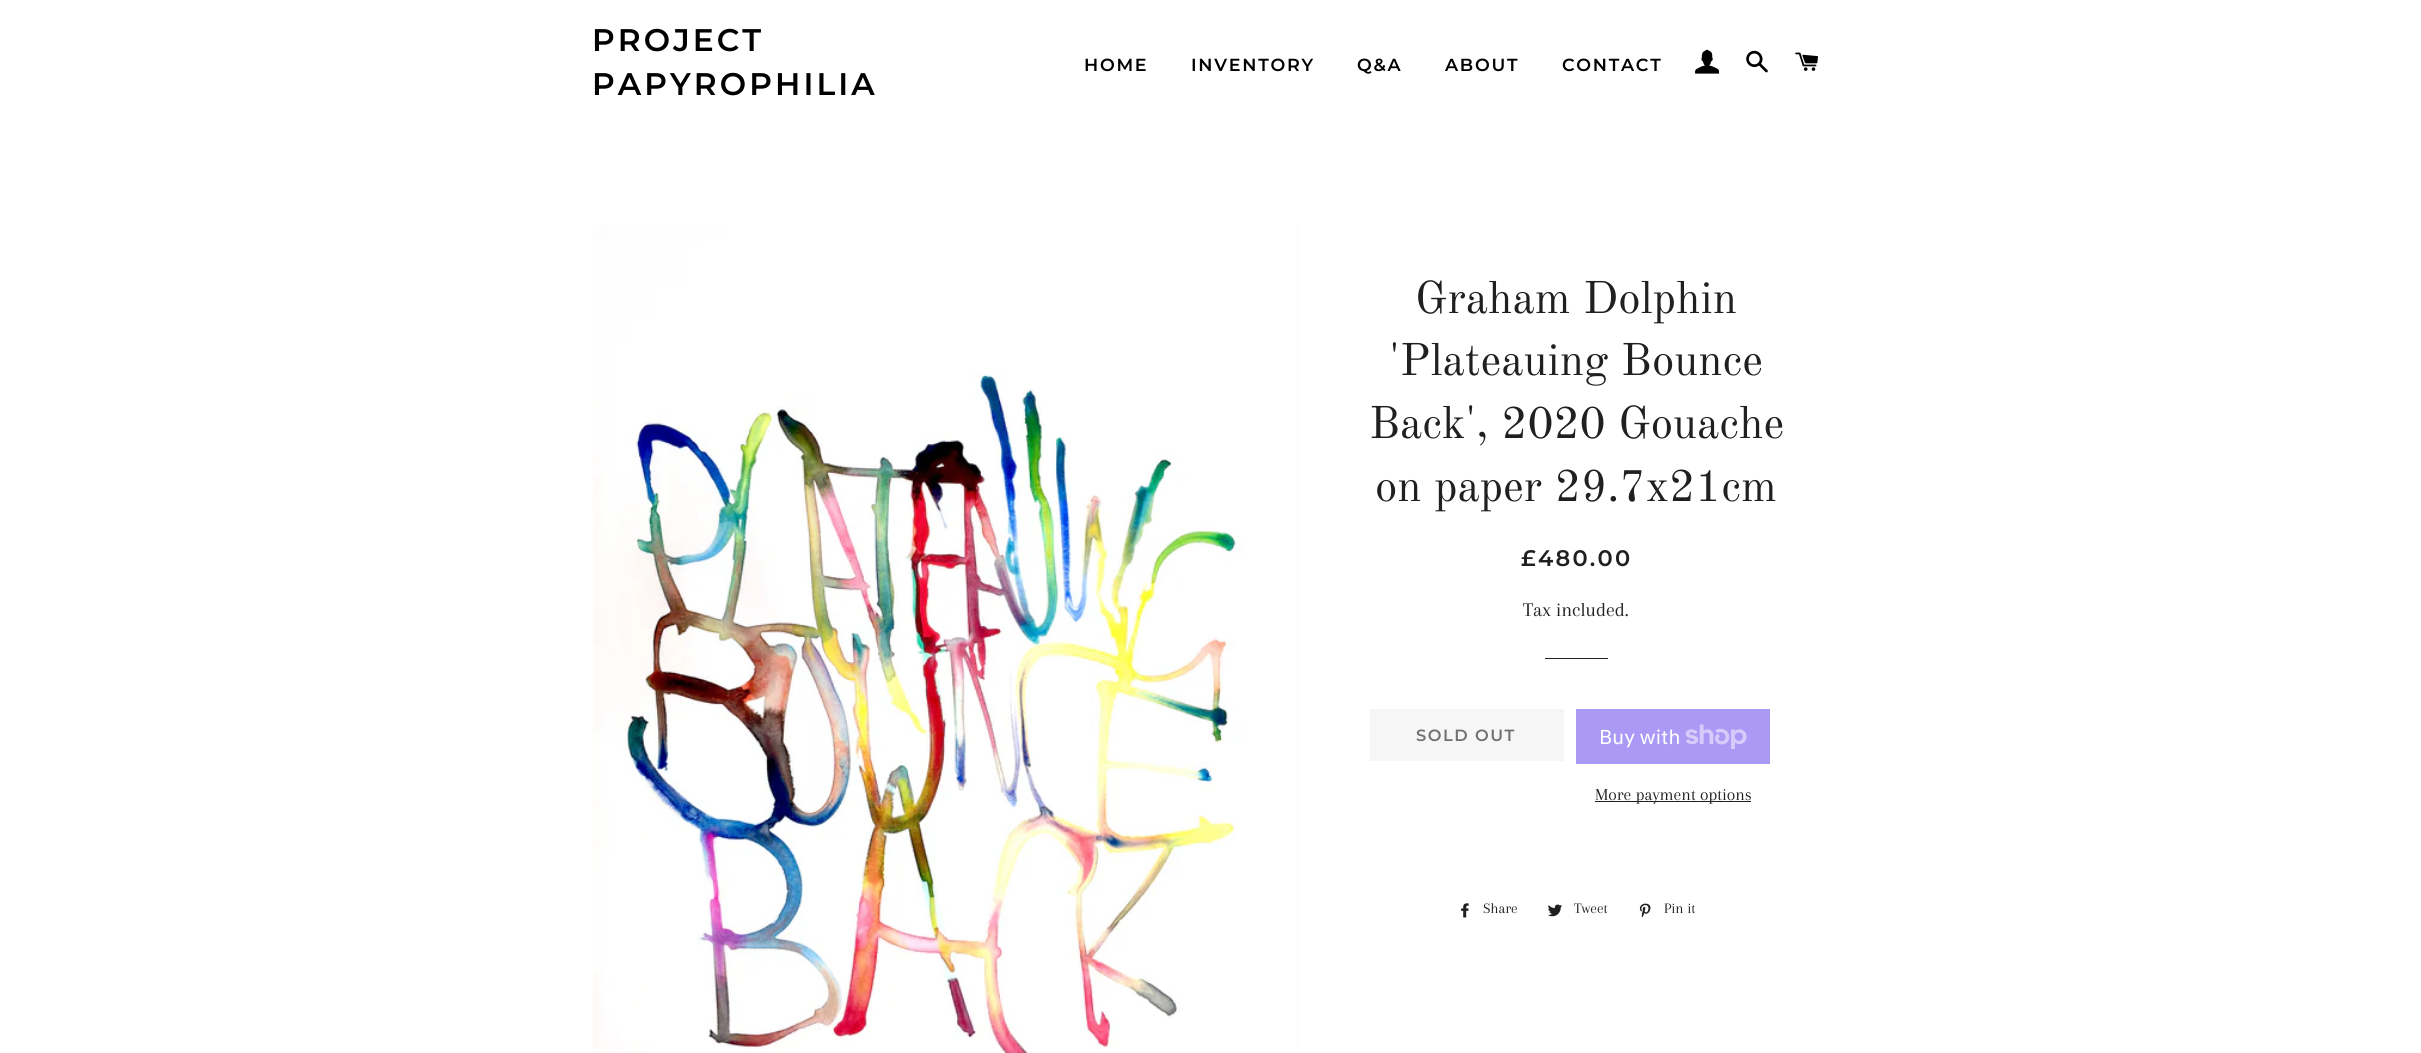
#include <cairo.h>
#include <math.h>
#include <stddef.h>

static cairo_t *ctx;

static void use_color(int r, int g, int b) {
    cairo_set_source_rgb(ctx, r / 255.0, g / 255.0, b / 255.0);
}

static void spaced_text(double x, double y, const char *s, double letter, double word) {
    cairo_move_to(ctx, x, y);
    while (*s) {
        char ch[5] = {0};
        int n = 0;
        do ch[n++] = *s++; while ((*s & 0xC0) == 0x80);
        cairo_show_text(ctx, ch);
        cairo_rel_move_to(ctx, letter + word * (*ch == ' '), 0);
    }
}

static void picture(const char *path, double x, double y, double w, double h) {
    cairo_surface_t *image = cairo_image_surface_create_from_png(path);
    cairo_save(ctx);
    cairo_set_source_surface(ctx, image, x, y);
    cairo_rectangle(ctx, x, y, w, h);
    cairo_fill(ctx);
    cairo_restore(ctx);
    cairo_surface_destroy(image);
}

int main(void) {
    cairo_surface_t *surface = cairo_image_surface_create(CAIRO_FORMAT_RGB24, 2421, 1053);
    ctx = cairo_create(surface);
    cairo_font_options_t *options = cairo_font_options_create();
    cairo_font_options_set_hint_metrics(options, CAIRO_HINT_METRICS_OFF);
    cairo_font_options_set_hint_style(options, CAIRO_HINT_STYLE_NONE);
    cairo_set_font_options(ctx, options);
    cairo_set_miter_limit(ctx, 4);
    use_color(255, 255, 255);
    cairo_paint(ctx);
    cairo_select_font_face(ctx, "Montserrat SemiBold", CAIRO_FONT_SLANT_NORMAL, CAIRO_FONT_WEIGHT_NORMAL);
    cairo_set_font_size(ctx, 31.25);
    use_color(0, 0, 0);
    spaced_text(592, 51, "PROJECT", 3.1, 0);
    spaced_text(592, 95, "PAPYROPHILIA", 3.1, 0);
    cairo_set_font_size(ctx, 17.5);
    spaced_text(1084, 71, "HOME", 1.75, 0);
    spaced_text(1191, 71, "INVENTORY", 1.75, 0);
    spaced_text(1357, 71, "Q&A", 1.75, 0);
    spaced_text(1445, 71, "ABOUT", 1.75, 0);
    spaced_text(1562, 71, "CONTACT", 1.75, 0);
    picture("img1.png", 1695, 49, 25, 25);
    picture("img2.png", 1746, 50, 22, 23);
    picture("img3.png", 1795, 52, 23, 19);
    use_color(246, 246, 246);
    cairo_rectangle(ctx, 1297, 225, 1, 828);
    cairo_fill(ctx);
    picture("img4.png", 593, 225, 705, 828);
    cairo_select_font_face(ctx, "Old Standard TT", CAIRO_FONT_SLANT_NORMAL, CAIRO_FONT_WEIGHT_NORMAL);
    cairo_set_font_size(ctx, 45);
    use_color(31, 32, 33);
    cairo_move_to(ctx, 1415, 313);
    cairo_show_text(ctx, "Graham Dolphin");
    cairo_move_to(ctx, 1389, 375);
    cairo_show_text(ctx, "'Plateauing Bounce");
    cairo_move_to(ctx, 1369, 438);
    cairo_show_text(ctx, "Back', 2020 Gouache");
    cairo_move_to(ctx, 1375, 501);
    cairo_show_text(ctx, "on paper 29.7x21cm");
    cairo_select_font_face(ctx, "Montserrat SemiBold", CAIRO_FONT_SLANT_NORMAL, CAIRO_FONT_WEIGHT_NORMAL);
    cairo_set_font_size(ctx, 22.5);
    spaced_text(1521, 566, "£480.00", 2.25, 0);
    cairo_select_font_face(ctx, "Arapey", CAIRO_FONT_SLANT_NORMAL, CAIRO_FONT_WEIGHT_NORMAL);
    cairo_set_font_size(ctx, 20);
    cairo_move_to(ctx, 1523, 616);
    cairo_show_text(ctx, "Tax included.");
    cairo_rectangle(ctx, 1545, 658, 63, 1);
    cairo_fill(ctx);
    use_color(246, 246, 246);
    cairo_rectangle(ctx, 1370, 709, 194, 52);
    cairo_fill(ctx);
    cairo_select_font_face(ctx, "Montserrat SemiBold", CAIRO_FONT_SLANT_NORMAL, CAIRO_FONT_WEIGHT_NORMAL);
    cairo_set_font_size(ctx, 16.25);
    use_color(113, 113, 113);
    spaced_text(1416, 741, "SOLD OUT", 1.5, 0);
    use_color(170, 153, 245);
    cairo_rectangle(ctx, 1576, 709, 194, 55);
    cairo_fill(ctx);
    cairo_select_font_face(ctx, "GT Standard", CAIRO_FONT_SLANT_NORMAL, CAIRO_FONT_WEIGHT_NORMAL);
    cairo_set_font_size(ctx, 20);
    use_color(255, 255, 255);
    cairo_move_to(ctx, 1599, 744);
    cairo_show_text(ctx, "Buy with");
    picture("img5.png", 1685, 724, 62, 25);
    use_color(31, 32, 33);
    cairo_rectangle(ctx, 1595, 801, 156, 1);
    cairo_fill(ctx);
    cairo_select_font_face(ctx, "Arapey", CAIRO_FONT_SLANT_NORMAL, CAIRO_FONT_WEIGHT_NORMAL);
    cairo_set_font_size(ctx, 17.5);
    cairo_move_to(ctx, 1595, 800);
    cairo_show_text(ctx, "More payment options");
    picture("img6.png", 1461, 903, 8, 15);
    cairo_set_font_size(ctx, 15);
    cairo_move_to(ctx, 1483, 913);
    cairo_show_text(ctx, "Share");
    picture("img7.png", 1548, 904, 14, 13);
    cairo_move_to(ctx, 1574, 913);
    cairo_show_text(ctx, "Tweet");
    picture("img8.png", 1639, 903, 12, 15);
    cairo_move_to(ctx, 1664, 913);
    cairo_show_text(ctx, "Pin it");
    cairo_surface_write_to_png(surface, "result.png");
    cairo_font_options_destroy(options);
    cairo_destroy(ctx);
    cairo_surface_destroy(surface);
    return 0;
}
